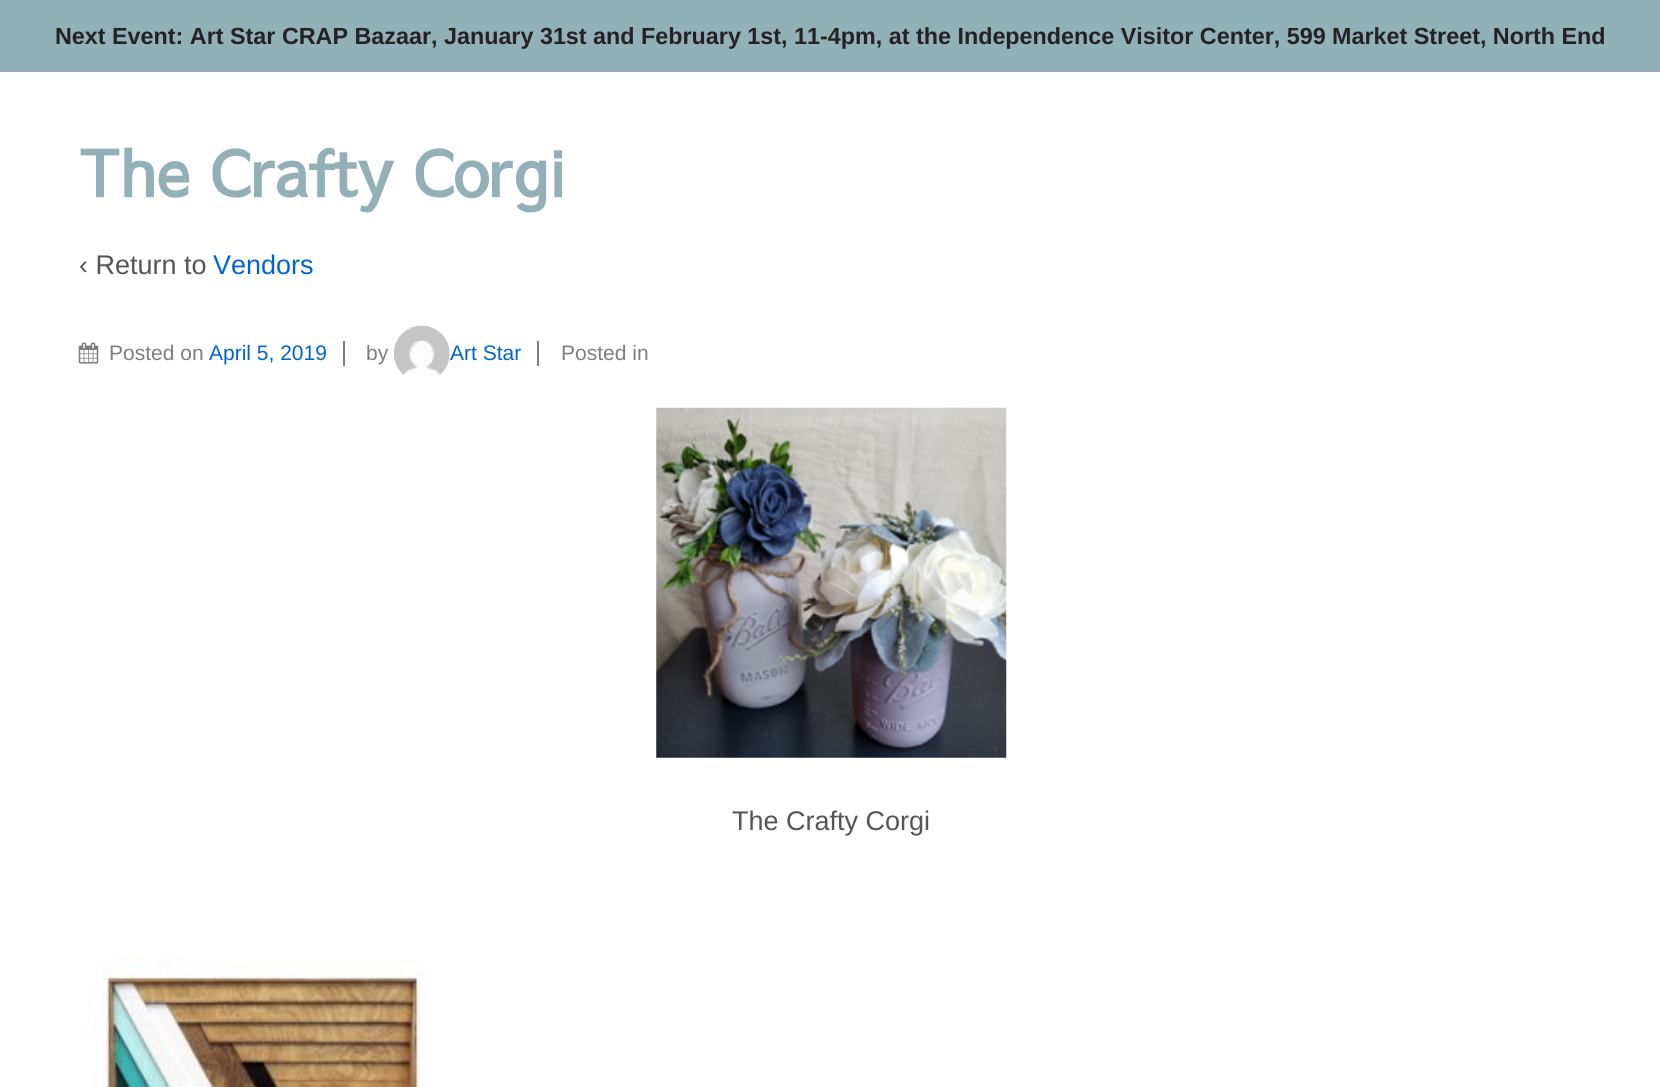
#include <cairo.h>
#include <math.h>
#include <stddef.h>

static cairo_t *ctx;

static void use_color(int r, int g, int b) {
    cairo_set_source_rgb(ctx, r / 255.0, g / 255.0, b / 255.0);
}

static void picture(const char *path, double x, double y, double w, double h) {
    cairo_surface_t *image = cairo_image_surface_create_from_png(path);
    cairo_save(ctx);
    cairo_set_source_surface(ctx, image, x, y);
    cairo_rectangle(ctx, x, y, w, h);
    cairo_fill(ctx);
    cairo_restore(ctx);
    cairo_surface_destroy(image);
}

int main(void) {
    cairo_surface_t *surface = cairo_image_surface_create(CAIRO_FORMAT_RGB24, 1660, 1087);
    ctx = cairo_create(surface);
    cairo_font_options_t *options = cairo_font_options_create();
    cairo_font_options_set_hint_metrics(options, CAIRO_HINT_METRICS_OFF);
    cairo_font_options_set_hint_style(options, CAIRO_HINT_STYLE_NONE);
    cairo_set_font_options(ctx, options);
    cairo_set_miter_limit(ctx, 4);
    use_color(255, 255, 255);
    cairo_paint(ctx);
    use_color(145, 176, 183);
    cairo_rectangle(ctx, 0, 0, 1660, 72);
    cairo_fill(ctx);
    cairo_select_font_face(ctx, "Liberation Sans", CAIRO_FONT_SLANT_NORMAL, CAIRO_FONT_WEIGHT_BOLD);
    cairo_set_font_size(ctx, 23.33);
    use_color(35, 35, 35);
    cairo_move_to(ctx, 55, 44);
    cairo_show_text(ctx, "Next Event: Art Star CRAP Bazaar, January 31st and February 1st, 11-4pm, at the Independence Visitor Center, 599 Market Street, North End");
    cairo_select_font_face(ctx, "Sawarabi Gothic", CAIRO_FONT_SLANT_NORMAL, CAIRO_FONT_WEIGHT_BOLD);
    cairo_set_font_size(ctx, 64.25);
    use_color(146, 176, 182);
    cairo_move_to(ctx, 79, 197);
    cairo_show_text(ctx, "The Crafty Corgi");
    cairo_select_font_face(ctx, "Liberation Sans", CAIRO_FONT_SLANT_NORMAL, CAIRO_FONT_WEIGHT_NORMAL);
    cairo_set_font_size(ctx, 27);
    use_color(85, 85, 85);
    cairo_move_to(ctx, 79, 274);
    cairo_show_text(ctx, "‹ Return to");
    use_color(0, 102, 204);
    cairo_move_to(ctx, 213, 274);
    cairo_show_text(ctx, "Vendors");
    picture("img1.png", 78, 342, 21, 22);
    cairo_set_font_size(ctx, 21);
    use_color(126, 126, 126);
    cairo_move_to(ctx, 109, 360);
    cairo_show_text(ctx, "Posted on");
    use_color(0, 102, 204);
    cairo_move_to(ctx, 209, 360);
    cairo_show_text(ctx, "April 5, 2019");
    use_color(126, 126, 126);
    cairo_rectangle(ctx, 343, 341, 2, 25);
    cairo_fill(ctx);
    cairo_move_to(ctx, 366, 360);
    cairo_show_text(ctx, "by");
    picture("img2.png", 394, 325, 56, 52);
    use_color(0, 102, 204);
    cairo_move_to(ctx, 450, 360);
    cairo_show_text(ctx, "Art Star");
    use_color(126, 126, 126);
    cairo_rectangle(ctx, 537, 341, 2, 25);
    cairo_fill(ctx);
    cairo_move_to(ctx, 561, 360);
    cairo_show_text(ctx, "Posted in");
    picture("img3.png", 656, 407, 351, 351);
    cairo_set_font_size(ctx, 27);
    use_color(85, 85, 85);
    cairo_move_to(ctx, 732, 830);
    cairo_show_text(ctx, "The Crafty Corgi");
    picture("img4.png", 87, 957, 337, 130);
    cairo_surface_write_to_png(surface, "result.png");
    cairo_font_options_destroy(options);
    cairo_destroy(ctx);
    cairo_surface_destroy(surface);
    return 0;
}
